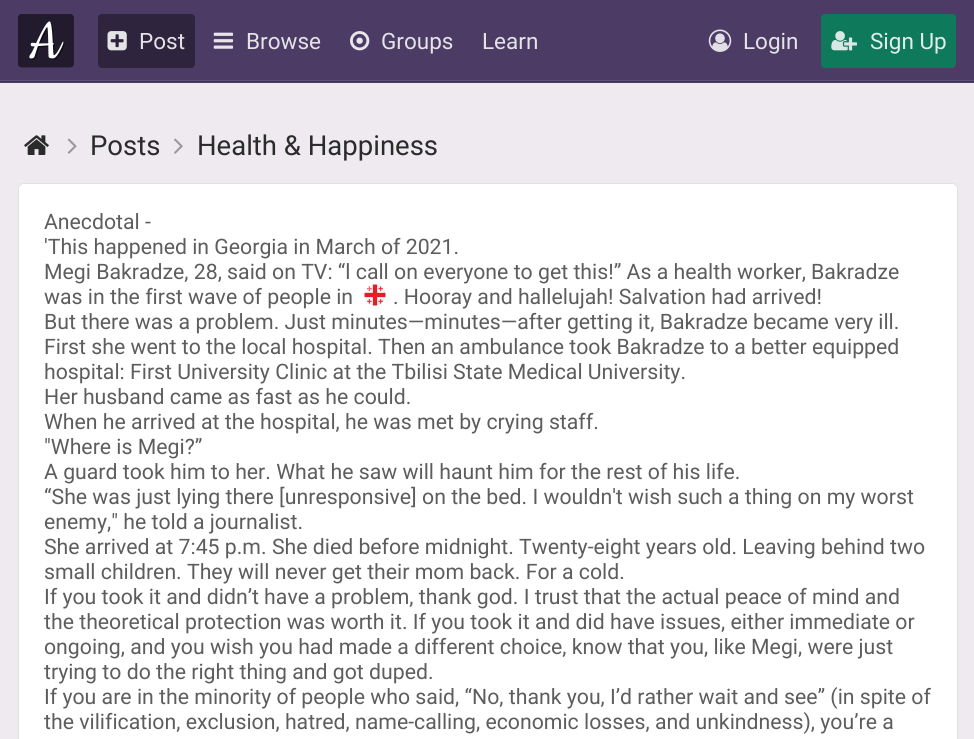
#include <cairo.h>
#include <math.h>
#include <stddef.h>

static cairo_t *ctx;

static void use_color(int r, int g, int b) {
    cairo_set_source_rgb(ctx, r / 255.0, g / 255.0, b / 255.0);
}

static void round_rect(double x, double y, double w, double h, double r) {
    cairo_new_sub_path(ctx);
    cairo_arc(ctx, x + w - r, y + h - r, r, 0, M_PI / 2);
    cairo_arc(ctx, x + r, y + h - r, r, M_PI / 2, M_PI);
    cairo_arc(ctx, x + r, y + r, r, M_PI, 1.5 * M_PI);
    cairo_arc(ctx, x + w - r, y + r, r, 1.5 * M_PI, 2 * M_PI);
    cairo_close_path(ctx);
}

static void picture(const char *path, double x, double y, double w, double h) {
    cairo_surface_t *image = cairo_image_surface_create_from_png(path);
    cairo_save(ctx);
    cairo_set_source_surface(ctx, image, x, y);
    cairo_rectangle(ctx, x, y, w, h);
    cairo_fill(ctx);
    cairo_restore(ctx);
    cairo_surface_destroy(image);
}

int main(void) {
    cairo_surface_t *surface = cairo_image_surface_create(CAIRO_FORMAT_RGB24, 974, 739);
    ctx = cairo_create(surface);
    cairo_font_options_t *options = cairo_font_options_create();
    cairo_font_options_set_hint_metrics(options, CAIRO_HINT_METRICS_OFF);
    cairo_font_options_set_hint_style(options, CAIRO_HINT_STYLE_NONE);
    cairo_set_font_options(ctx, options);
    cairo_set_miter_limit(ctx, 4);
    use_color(238, 234, 240);
    cairo_paint(ctx);
    use_color(76, 60, 101);
    cairo_rectangle(ctx, 0, 0, 974, 83);
    cairo_fill(ctx);
    use_color(94, 80, 116);
    cairo_rectangle(ctx, 0, 80, 974, 1);
    cairo_fill(ctx);
    use_color(62, 49, 82);
    cairo_rectangle(ctx, 0, 81, 974, 1);
    cairo_fill(ctx);
    picture("img1.png", 18, 14, 56, 54);
    use_color(46, 36, 61);
    round_rect(98, 14, 97, 54, 4);
    cairo_fill(ctx);
    picture("img2.png", 107, 31, 20, 20);
    cairo_select_font_face(ctx, "Roboto", CAIRO_FONT_SLANT_NORMAL, CAIRO_FONT_WEIGHT_NORMAL);
    cairo_set_font_size(ctx, 22.5);
    use_color(228, 227, 230);
    cairo_move_to(ctx, 139, 49);
    cairo_show_text(ctx, "Post");
    picture("img3.png", 213, 32, 21, 17);
    cairo_move_to(ctx, 246, 49);
    cairo_show_text(ctx, "Browse");
    picture("img4.png", 350, 31, 20, 20);
    cairo_move_to(ctx, 381, 49);
    cairo_show_text(ctx, "Groups");
    cairo_move_to(ctx, 482, 49);
    cairo_show_text(ctx, "Learn");
    picture("img5.png", 708, 29, 24, 23);
    cairo_move_to(ctx, 743, 49);
    cairo_show_text(ctx, "Login");
    use_color(15, 121, 92);
    round_rect(821, 14, 135, 54, 4);
    cairo_fill(ctx);
    picture("img6.png", 831, 31, 26, 20);
    use_color(224, 238, 234);
    cairo_move_to(ctx, 870, 49);
    cairo_show_text(ctx, "Sign Up");
    picture("img7.png", 24, 135, 25, 20);
    picture("img8.png", 67, 138, 10, 16);
    cairo_set_font_size(ctx, 27.5);
    use_color(43, 43, 43);
    cairo_move_to(ctx, 90, 155);
    cairo_show_text(ctx, "Posts");
    picture("img9.png", 174, 138, 9, 16);
    cairo_move_to(ctx, 197, 155);
    cairo_show_text(ctx, "Health & Happiness");
    use_color(255, 255, 255);
    round_rect(18, 183, 940, 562, 6);
    cairo_fill(ctx);
    round_rect(18.5, 183.5, 939, 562, 5.5);
    cairo_set_source_rgba(ctx, 0, 0, 0, 0.12);
    cairo_set_line_width(ctx, 1);
    cairo_stroke(ctx);
    cairo_set_font_size(ctx, 21.25);
    use_color(93, 93, 93);
    cairo_move_to(ctx, 44, 229);
    cairo_show_text(ctx, "Anecdotal -");
    cairo_move_to(ctx, 44, 254);
    cairo_show_text(ctx, "'This happened in Georgia in March of 2021.");
    cairo_move_to(ctx, 44, 279);
    cairo_show_text(ctx, "Megi Bakradze, 28, said on TV: “l call on everyone to get this!” As a health worker, Bakradze");
    cairo_move_to(ctx, 44, 304);
    cairo_show_text(ctx, "was in the first wave of people in");
    picture("img10.png", 364, 284, 22, 22);
    cairo_move_to(ctx, 393, 304);
    cairo_show_text(ctx, ". Hooray and hallelujah! Salvation had arrived!");
    cairo_move_to(ctx, 44, 329);
    cairo_show_text(ctx, "But there was a problem. Just minutes—minutes—after getting it, Bakradze became very ill.");
    cairo_move_to(ctx, 44, 354);
    cairo_show_text(ctx, "First she went to the local hospital. Then an ambulance took Bakradze to a better equipped");
    cairo_move_to(ctx, 44, 379);
    cairo_show_text(ctx, "hospital: First University Clinic at the Tbilisi State Medical University.");
    cairo_move_to(ctx, 44, 404);
    cairo_show_text(ctx, "Her husband came as fast as he could.");
    cairo_move_to(ctx, 44, 429);
    cairo_show_text(ctx, "When he arrived at the hospital, he was met by crying staff.");
    cairo_move_to(ctx, 44, 454);
    cairo_show_text(ctx, "\"Where is Megi?”");
    cairo_move_to(ctx, 44, 479);
    cairo_show_text(ctx, "A guard took him to her. What he saw will haunt him for the rest of his life.");
    cairo_move_to(ctx, 44, 504);
    cairo_show_text(ctx, "“She was just lying there [unresponsive] on the bed. I wouldn't wish such a thing on my worst");
    cairo_move_to(ctx, 44, 529);
    cairo_show_text(ctx, "enemy,\" he told a journalist.");
    cairo_move_to(ctx, 44, 554);
    cairo_show_text(ctx, "She arrived at 7:45 p.m. She died before midnight. Twenty-eight years old. Leaving behind two");
    cairo_move_to(ctx, 44, 579);
    cairo_show_text(ctx, "small children. They will never get their mom back. For a cold.");
    cairo_move_to(ctx, 44, 604);
    cairo_show_text(ctx, "If you took it and didn’t have a problem, thank god. I trust that the actual peace of mind and");
    cairo_move_to(ctx, 44, 629);
    cairo_show_text(ctx, "the theoretical protection was worth it. If you took it and did have issues, either immediate or");
    cairo_move_to(ctx, 44, 654);
    cairo_show_text(ctx, "ongoing, and you wish you had made a different choice, know that you, like Megi, were just");
    cairo_move_to(ctx, 44, 679);
    cairo_show_text(ctx, "trying to do the right thing and got duped.");
    cairo_move_to(ctx, 44, 704);
    cairo_show_text(ctx, "If you are in the minority of people who said, “No, thank you, I’d rather wait and see” (in spite of");
    cairo_move_to(ctx, 44, 729);
    cairo_show_text(ctx, "the vilification, exclusion, hatred, name-calling, economic losses, and unkindness), you’re a");
    cairo_surface_write_to_png(surface, "result.png");
    cairo_font_options_destroy(options);
    cairo_destroy(ctx);
    cairo_surface_destroy(surface);
    return 0;
}
